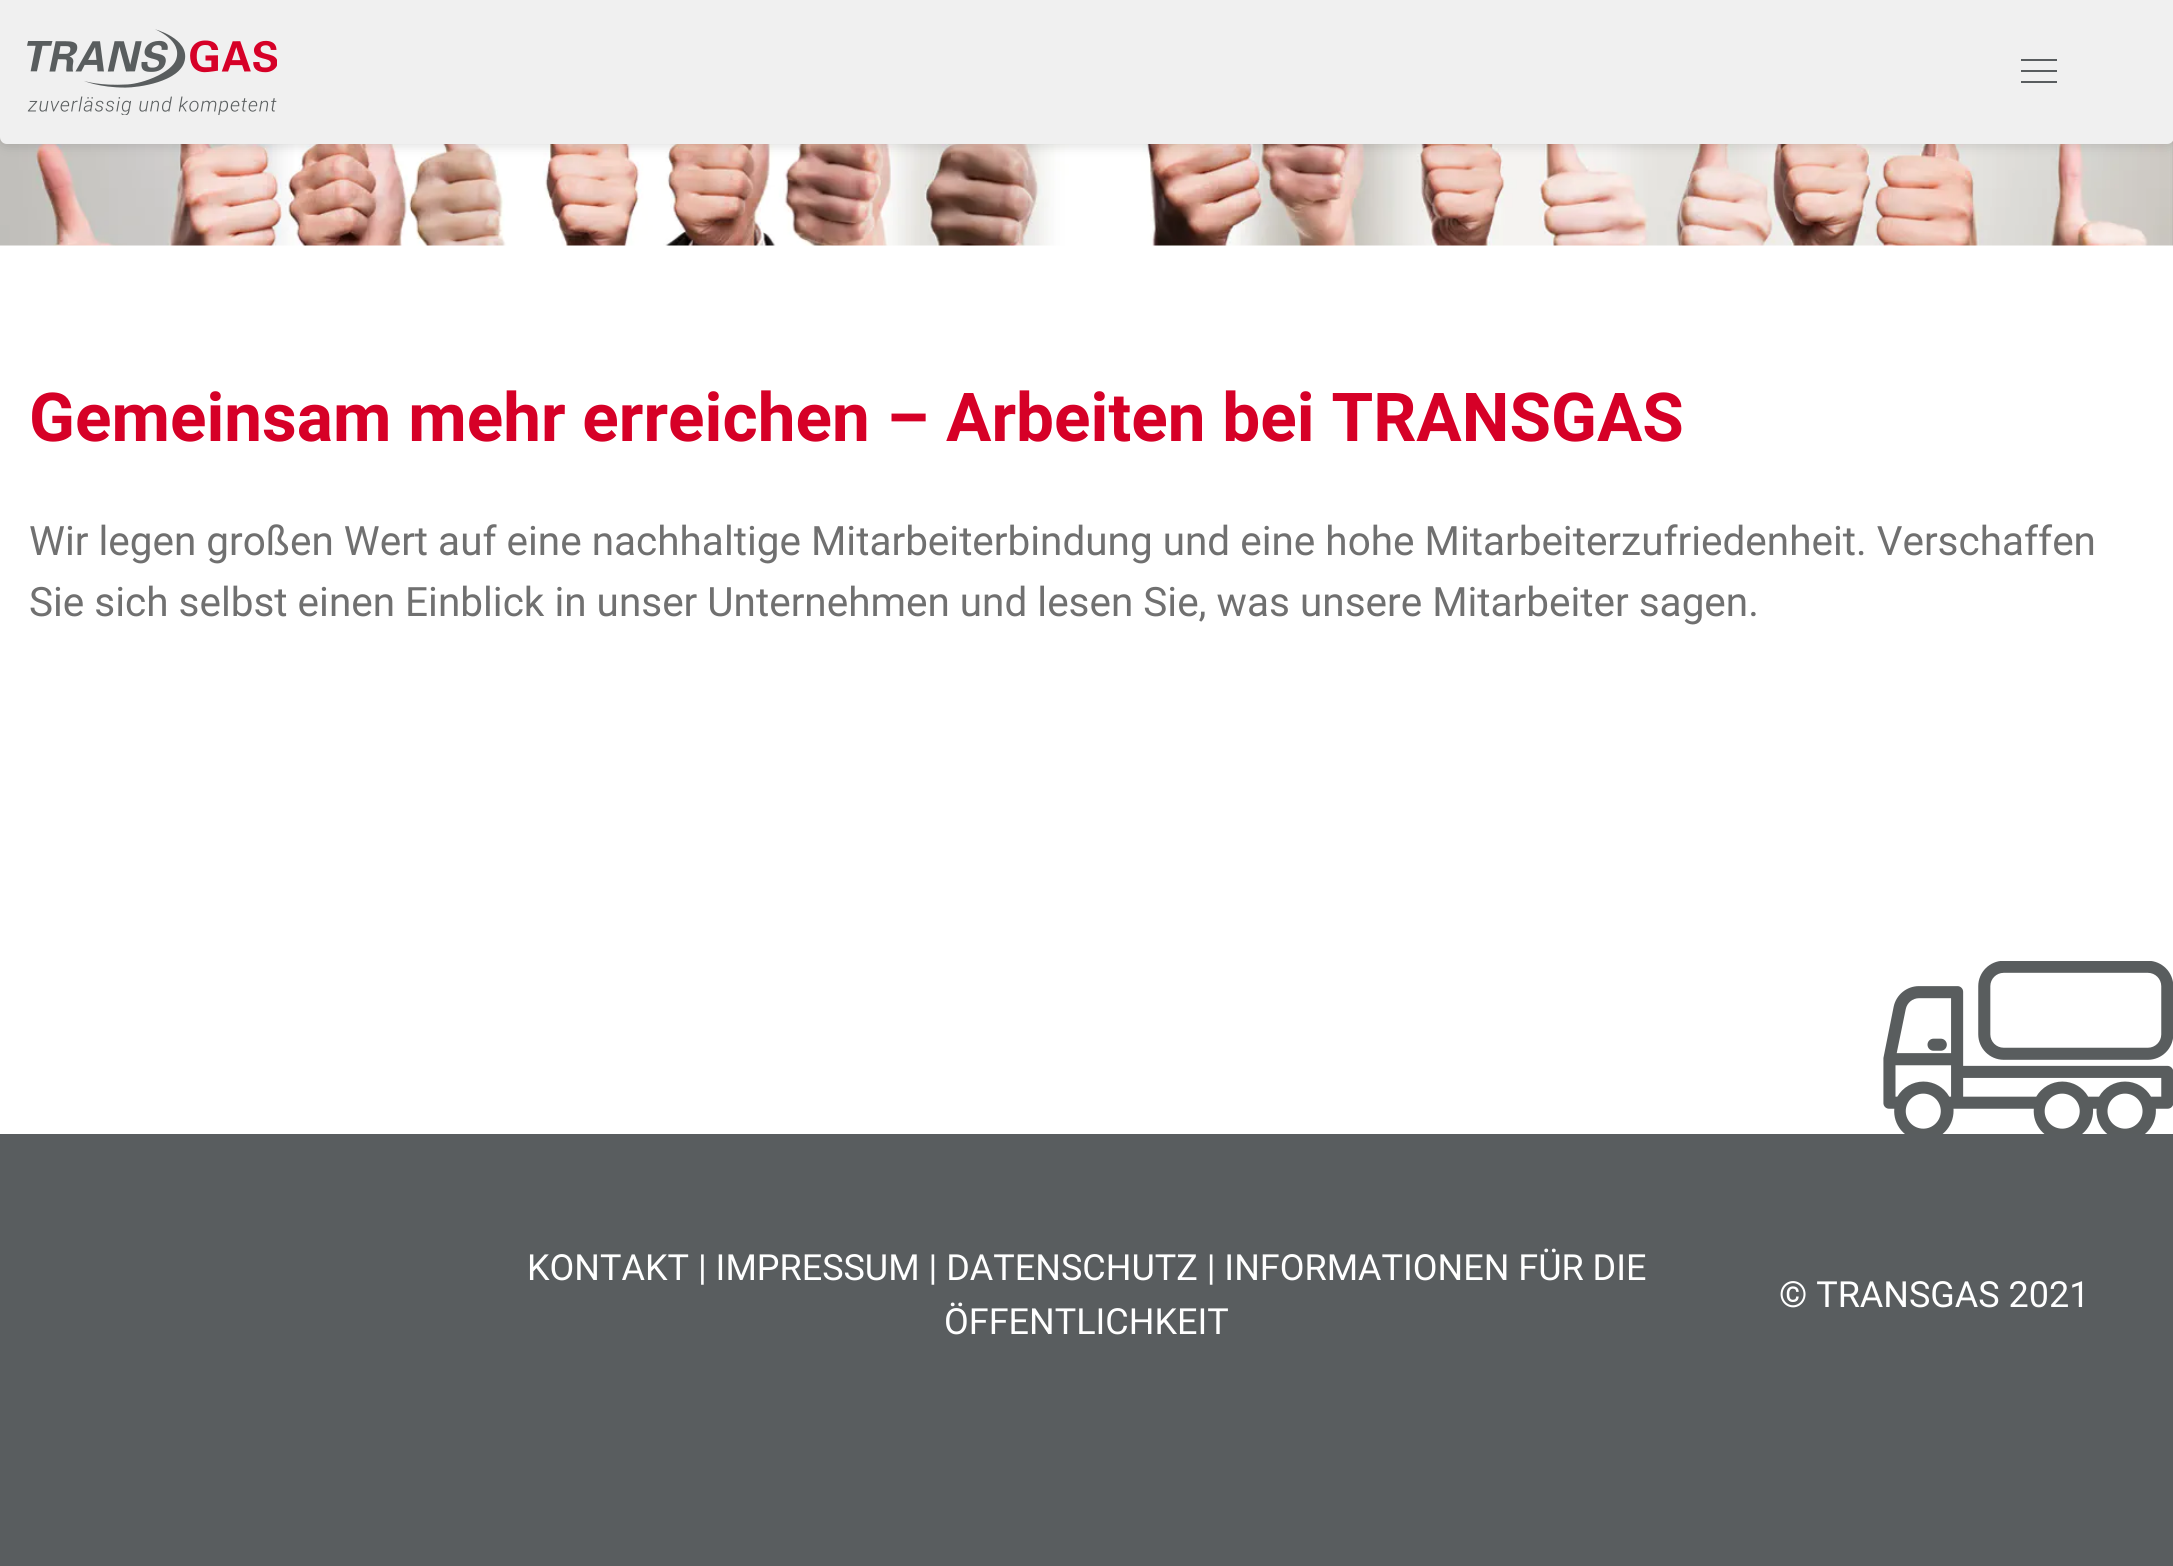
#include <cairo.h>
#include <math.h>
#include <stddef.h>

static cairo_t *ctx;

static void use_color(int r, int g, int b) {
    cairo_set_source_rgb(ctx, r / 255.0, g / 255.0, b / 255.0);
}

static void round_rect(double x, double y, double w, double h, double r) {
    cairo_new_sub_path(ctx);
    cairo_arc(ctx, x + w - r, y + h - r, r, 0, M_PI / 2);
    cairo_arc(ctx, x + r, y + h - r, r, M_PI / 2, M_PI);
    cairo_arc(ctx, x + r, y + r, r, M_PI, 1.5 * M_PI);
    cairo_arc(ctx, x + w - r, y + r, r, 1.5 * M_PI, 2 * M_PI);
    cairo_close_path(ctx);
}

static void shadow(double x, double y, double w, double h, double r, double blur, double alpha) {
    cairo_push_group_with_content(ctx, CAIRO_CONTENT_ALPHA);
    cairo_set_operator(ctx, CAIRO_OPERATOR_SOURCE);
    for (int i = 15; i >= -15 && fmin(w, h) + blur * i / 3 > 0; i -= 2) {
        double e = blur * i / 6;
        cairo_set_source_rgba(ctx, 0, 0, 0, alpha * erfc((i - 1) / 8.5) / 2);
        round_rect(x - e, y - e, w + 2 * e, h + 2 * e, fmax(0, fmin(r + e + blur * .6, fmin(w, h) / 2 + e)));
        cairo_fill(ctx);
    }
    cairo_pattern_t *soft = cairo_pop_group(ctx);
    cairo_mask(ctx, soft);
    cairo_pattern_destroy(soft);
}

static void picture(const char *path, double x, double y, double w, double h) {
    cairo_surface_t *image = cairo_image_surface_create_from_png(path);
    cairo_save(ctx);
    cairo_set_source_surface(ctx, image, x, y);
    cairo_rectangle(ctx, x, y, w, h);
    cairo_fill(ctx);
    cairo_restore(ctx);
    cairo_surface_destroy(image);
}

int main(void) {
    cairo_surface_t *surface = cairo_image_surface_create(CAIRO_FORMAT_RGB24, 2173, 1566);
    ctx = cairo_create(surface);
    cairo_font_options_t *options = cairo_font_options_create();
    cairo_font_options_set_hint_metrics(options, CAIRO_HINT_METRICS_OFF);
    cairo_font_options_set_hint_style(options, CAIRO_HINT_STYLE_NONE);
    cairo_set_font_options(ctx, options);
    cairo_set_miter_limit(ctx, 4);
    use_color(255, 255, 255);
    cairo_paint(ctx);
    picture("img2.png", 0, 137, 2173, 109);
    use_color(0, 0, 0);
    shadow(0, 0, 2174, 144, 7, 7, 0.16);
    use_color(240, 240, 240);
    cairo_new_path(ctx);
    cairo_move_to(ctx, 0, 0);
    cairo_line_to(ctx, 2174, 0);
    cairo_line_to(ctx, 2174, 137);
    cairo_curve_to(ctx, 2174, 141, 2171, 144, 2167, 144);
    cairo_line_to(ctx, 7, 144);
    cairo_curve_to(ctx, 3, 144, 0, 141, 0, 137);
    cairo_close_path(ctx);
    cairo_fill(ctx);
    picture("img1.png", 27, 29, 250, 86);
    use_color(89, 93, 95);
    cairo_rectangle(ctx, 2021, 59, 36, 2);
    cairo_fill(ctx);
    cairo_rectangle(ctx, 2021, 70, 36, 2);
    cairo_fill(ctx);
    cairo_rectangle(ctx, 2021, 81, 36, 2);
    cairo_fill(ctx);
    cairo_select_font_face(ctx, "Roboto", CAIRO_FONT_SLANT_NORMAL, CAIRO_FONT_WEIGHT_BOLD);
    cairo_set_font_size(ctx, 67.5);
    use_color(214, 0, 39);
    cairo_move_to(ctx, 29, 441);
    cairo_show_text(ctx, "Gemeinsam mehr erreichen – Arbeiten bei TRANSGAS");
    cairo_select_font_face(ctx, "Roboto", CAIRO_FONT_SLANT_NORMAL, CAIRO_FONT_WEIGHT_NORMAL);
    cairo_set_font_size(ctx, 40.5);
    use_color(112, 112, 112);
    cairo_move_to(ctx, 29, 555);
    cairo_show_text(ctx, "Wir legen großen Wert auf eine nachhaltige Mitarbeiterbindung und eine hohe Mitarbeiterzufriedenheit. Verschaffen");
    cairo_move_to(ctx, 29, 616);
    cairo_show_text(ctx, "Sie sich selbst einen Einblick in unser Unternehmen und lesen Sie, was unsere Mitarbeiter sagen.");
    picture("img3.png", 1883, 961, 290, 173);
    use_color(89, 93, 95);
    cairo_rectangle(ctx, 0, 1134, 2173, 432);
    cairo_fill(ctx);
    cairo_set_font_size(ctx, 36);
    use_color(255, 255, 255);
    cairo_move_to(ctx, 527, 1280);
    cairo_show_text(ctx, "KONTAKT | IMPRESSUM | DATENSCHUTZ | INFORMATIONEN FÜR DIE");
    cairo_move_to(ctx, 944, 1334);
    cairo_show_text(ctx, "ÖFFENTLICHKEIT");
    cairo_move_to(ctx, 1779, 1307);
    cairo_show_text(ctx, "© TRANSGAS 2021");
    cairo_surface_write_to_png(surface, "result.png");
    cairo_font_options_destroy(options);
    cairo_destroy(ctx);
    cairo_surface_destroy(surface);
    return 0;
}
